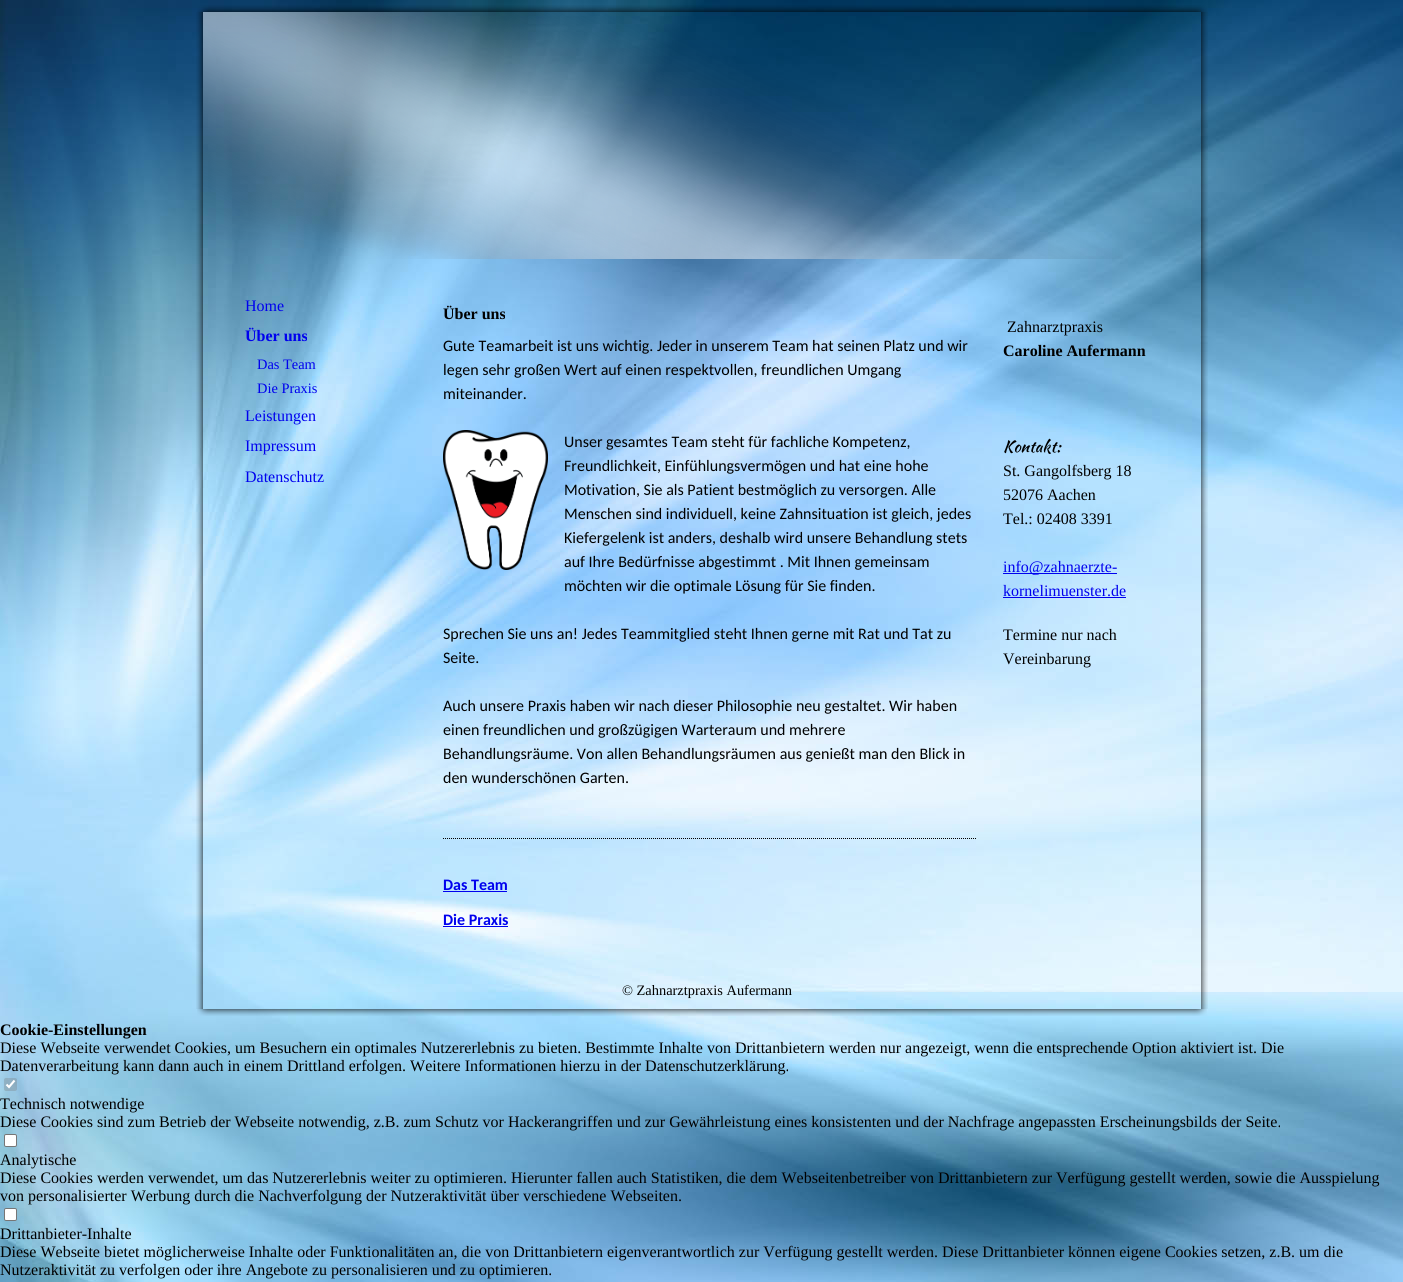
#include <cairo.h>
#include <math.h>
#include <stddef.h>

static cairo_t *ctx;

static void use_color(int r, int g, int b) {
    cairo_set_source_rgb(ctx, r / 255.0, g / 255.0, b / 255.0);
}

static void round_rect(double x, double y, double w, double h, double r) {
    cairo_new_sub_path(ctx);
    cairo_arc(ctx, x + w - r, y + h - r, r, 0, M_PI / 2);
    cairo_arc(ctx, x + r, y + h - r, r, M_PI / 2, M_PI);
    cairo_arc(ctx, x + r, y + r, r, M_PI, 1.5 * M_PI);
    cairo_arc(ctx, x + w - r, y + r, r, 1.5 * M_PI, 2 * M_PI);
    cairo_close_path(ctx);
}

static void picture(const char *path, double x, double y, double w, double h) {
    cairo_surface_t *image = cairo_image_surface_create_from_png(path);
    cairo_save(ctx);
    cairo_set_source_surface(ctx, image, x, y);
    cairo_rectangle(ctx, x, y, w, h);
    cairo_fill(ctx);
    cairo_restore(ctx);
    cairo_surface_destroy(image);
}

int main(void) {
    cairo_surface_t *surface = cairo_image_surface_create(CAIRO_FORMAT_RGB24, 1403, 1282);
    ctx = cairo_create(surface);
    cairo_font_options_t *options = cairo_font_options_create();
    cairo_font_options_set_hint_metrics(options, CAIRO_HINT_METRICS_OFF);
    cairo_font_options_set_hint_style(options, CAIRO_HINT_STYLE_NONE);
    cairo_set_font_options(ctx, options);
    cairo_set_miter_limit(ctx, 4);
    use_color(255, 255, 255);
    cairo_paint(ctx);
    picture("img1.png", 0, 0, 1403, 1282);
    picture("img2.png", 197, 5, 1010, 7);
    picture("img3.png", 196, 12, 1012, 997);
    picture("img4.png", 203, 12, 920, 247);
    cairo_select_font_face(ctx, "Liberation Serif", CAIRO_FONT_SLANT_NORMAL, CAIRO_FONT_WEIGHT_NORMAL);
    cairo_set_font_size(ctx, 16);
    use_color(0, 0, 238);
    cairo_move_to(ctx, 245, 311);
    cairo_show_text(ctx, "Home");
    cairo_select_font_face(ctx, "Liberation Serif", CAIRO_FONT_SLANT_NORMAL, CAIRO_FONT_WEIGHT_BOLD);
    cairo_move_to(ctx, 245, 341);
    cairo_show_text(ctx, "Über uns");
    cairo_select_font_face(ctx, "Liberation Serif", CAIRO_FONT_SLANT_NORMAL, CAIRO_FONT_WEIGHT_NORMAL);
    cairo_set_font_size(ctx, 14.4);
    cairo_move_to(ctx, 257, 369);
    cairo_show_text(ctx, "Das Team");
    cairo_move_to(ctx, 257, 393);
    cairo_show_text(ctx, "Die Praxis");
    cairo_set_font_size(ctx, 16);
    cairo_move_to(ctx, 245, 421);
    cairo_show_text(ctx, "Leistungen");
    cairo_move_to(ctx, 245, 451);
    cairo_show_text(ctx, "Impressum");
    cairo_move_to(ctx, 245, 482);
    cairo_show_text(ctx, "Datenschutz");
    cairo_select_font_face(ctx, "Liberation Serif", CAIRO_FONT_SLANT_NORMAL, CAIRO_FONT_WEIGHT_BOLD);
    use_color(0, 0, 0);
    cairo_move_to(ctx, 443, 319);
    cairo_show_text(ctx, "Über uns");
    cairo_select_font_face(ctx, "Carlito", CAIRO_FONT_SLANT_NORMAL, CAIRO_FONT_WEIGHT_NORMAL);
    cairo_move_to(ctx, 443, 351);
    cairo_show_text(ctx, "Gute Teamarbeit ist uns wichtig. Jeder in unserem Team hat seinen Platz und wir");
    cairo_move_to(ctx, 443, 375);
    cairo_show_text(ctx, "legen sehr großen Wert auf einen respektvollen, freundlichen Umgang");
    cairo_move_to(ctx, 443, 399);
    cairo_show_text(ctx, "miteinander.");
    picture("img5.png", 443, 430, 105, 140);
    cairo_move_to(ctx, 564, 447);
    cairo_show_text(ctx, "Unser gesamtes Team steht für fachliche Kompetenz,");
    cairo_move_to(ctx, 564, 471);
    cairo_show_text(ctx, "Freundlichkeit, Einfühlungsvermögen und hat eine hohe");
    cairo_move_to(ctx, 564, 495);
    cairo_show_text(ctx, "Motivation, Sie als Patient bestmöglich zu versorgen. Alle");
    cairo_move_to(ctx, 564, 519);
    cairo_show_text(ctx, "Menschen sind individuell, keine Zahnsituation ist gleich, jedes");
    cairo_move_to(ctx, 564, 543);
    cairo_show_text(ctx, "Kiefergelenk ist anders, deshalb wird unsere Behandlung stets");
    cairo_move_to(ctx, 564, 567);
    cairo_show_text(ctx, "auf Ihre Bedürfnisse abgestimmt . Mit Ihnen gemeinsam");
    cairo_move_to(ctx, 564, 591);
    cairo_show_text(ctx, "möchten wir die optimale Lösung für Sie finden.");
    cairo_move_to(ctx, 443, 639);
    cairo_show_text(ctx, "Sprechen Sie uns an! Jedes Teammitglied steht Ihnen gerne mit Rat und Tat zu");
    cairo_move_to(ctx, 443, 663);
    cairo_show_text(ctx, "Seite.");
    cairo_move_to(ctx, 443, 711);
    cairo_show_text(ctx, "Auch unsere Praxis haben wir nach dieser Philosophie neu gestaltet. Wir haben");
    cairo_move_to(ctx, 443, 735);
    cairo_show_text(ctx, "einen freundlichen und großzügigen Warteraum und mehrere");
    cairo_move_to(ctx, 443, 759);
    cairo_show_text(ctx, "Behandlungsräume. Von allen Behandlungsräumen aus genießt man den Blick in");
    cairo_move_to(ctx, 443, 783);
    cairo_show_text(ctx, "den wunderschönen Garten.");
    cairo_new_path(ctx);
    cairo_move_to(ctx, 443, 838.5);
    cairo_line_to(ctx, 977, 838.5);
    cairo_set_line_width(ctx, 1);
    cairo_set_dash(ctx, (double[]){1, 1}, 2, 0);
    cairo_stroke(ctx);
    cairo_select_font_face(ctx, "Carlito", CAIRO_FONT_SLANT_NORMAL, CAIRO_FONT_WEIGHT_BOLD);
    use_color(0, 0, 238);
    cairo_move_to(ctx, 443, 890);
    cairo_show_text(ctx, "Das Team");
    cairo_rectangle(ctx, 443, 891, 64, 1);
    cairo_fill(ctx);
    cairo_move_to(ctx, 443, 925);
    cairo_show_text(ctx, "Die Praxis");
    cairo_rectangle(ctx, 443, 926, 65, 1);
    cairo_fill(ctx);
    cairo_select_font_face(ctx, "Liberation Serif", CAIRO_FONT_SLANT_NORMAL, CAIRO_FONT_WEIGHT_NORMAL);
    cairo_set_font_size(ctx, 14.4);
    use_color(0, 0, 0);
    cairo_move_to(ctx, 622, 995);
    cairo_show_text(ctx, "© Zahnarztpraxis Aufermann");
    cairo_set_font_size(ctx, 16);
    cairo_move_to(ctx, 1007, 332);
    cairo_show_text(ctx, "Zahnarztpraxis");
    cairo_select_font_face(ctx, "Liberation Serif", CAIRO_FONT_SLANT_NORMAL, CAIRO_FONT_WEIGHT_BOLD);
    cairo_move_to(ctx, 1003, 356);
    cairo_show_text(ctx, "Caroline Aufermann");
    cairo_select_font_face(ctx, "Kaushan Script", CAIRO_FONT_SLANT_NORMAL, CAIRO_FONT_WEIGHT_NORMAL);
    cairo_move_to(ctx, 1003, 452);
    cairo_show_text(ctx, "Kontakt:");
    cairo_select_font_face(ctx, "Liberation Serif", CAIRO_FONT_SLANT_NORMAL, CAIRO_FONT_WEIGHT_NORMAL);
    cairo_move_to(ctx, 1003, 476);
    cairo_show_text(ctx, "St. Gangolfsberg 18");
    cairo_move_to(ctx, 1003, 500);
    cairo_show_text(ctx, "52076 Aachen");
    cairo_move_to(ctx, 1003, 524);
    cairo_show_text(ctx, "Tel.: 02408 3391");
    use_color(0, 0, 238);
    cairo_rectangle(ctx, 1003, 573, 114, 1);
    cairo_fill(ctx);
    cairo_move_to(ctx, 1003, 572);
    cairo_show_text(ctx, "info@zahnaerzte-");
    cairo_move_to(ctx, 1003, 596);
    cairo_show_text(ctx, "kornelimuenster.de");
    cairo_rectangle(ctx, 1003, 597, 123, 1);
    cairo_fill(ctx);
    use_color(0, 0, 0);
    cairo_move_to(ctx, 1003, 640);
    cairo_show_text(ctx, "Termine nur nach");
    cairo_move_to(ctx, 1003, 664);
    cairo_show_text(ctx, "Vereinbarung");
    picture("img6.png", 197, 1009, 1010, 7);
    cairo_select_font_face(ctx, "Liberation Serif", CAIRO_FONT_SLANT_NORMAL, CAIRO_FONT_WEIGHT_BOLD);
    cairo_move_to(ctx, 0, 1035);
    cairo_show_text(ctx, "Cookie-Einstellungen");
    cairo_select_font_face(ctx, "Liberation Serif", CAIRO_FONT_SLANT_NORMAL, CAIRO_FONT_WEIGHT_NORMAL);
    cairo_move_to(ctx, 0, 1053);
    cairo_show_text(ctx, "Diese Webseite verwendet Cookies, um Besuchern ein optimales Nutzererlebnis zu bieten. Bestimmte Inhalte von Drittanbietern werden nur angezeigt, wenn die entsprechende Option aktiviert ist. Die");
    cairo_move_to(ctx, 0, 1071);
    cairo_show_text(ctx, "Datenverarbeitung kann dann auch in einem Drittland erfolgen. Weitere Informationen hierzu in der Datenschutzerklärung.");
    cairo_set_source_rgba(ctx, 0.463, 0.463, 0.463, 0.3);
    round_rect(4, 1078, 13, 13, 2);
    cairo_fill(ctx);
    cairo_new_path(ctx);
    cairo_move_to(ctx, 6.5, 1084.5);
    cairo_line_to(ctx, 9, 1087);
    cairo_line_to(ctx, 14.5, 1080.5);
    use_color(255, 255, 255);
    cairo_set_line_width(ctx, 2.1);
    cairo_set_dash(ctx, NULL, 0, 0);
    cairo_stroke(ctx);
    use_color(0, 0, 0);
    cairo_move_to(ctx, 0, 1109);
    cairo_show_text(ctx, "Technisch notwendige");
    cairo_move_to(ctx, 0, 1127);
    cairo_show_text(ctx, "Diese Cookies sind zum Betrieb der Webseite notwendig, z.B. zum Schutz vor Hackerangriffen und zur Gewährleistung eines konsistenten und der Nachfrage angepassten Erscheinungsbilds der Seite.");
    use_color(255, 255, 255);
    round_rect(4.5, 1134.5, 12, 12, 1.5);
    cairo_fill_preserve(ctx);
    use_color(118, 118, 118);
    cairo_set_line_width(ctx, 1);
    cairo_stroke(ctx);
    use_color(0, 0, 0);
    cairo_move_to(ctx, 0, 1165);
    cairo_show_text(ctx, "Analytische");
    cairo_move_to(ctx, 0, 1183);
    cairo_show_text(ctx, "Diese Cookies werden verwendet, um das Nutzererlebnis weiter zu optimieren. Hierunter fallen auch Statistiken, die dem Webseitenbetreiber von Drittanbietern zur Verfügung gestellt werden, sowie die Ausspielung");
    cairo_move_to(ctx, 0, 1201);
    cairo_show_text(ctx, "von personalisierter Werbung durch die Nachverfolgung der Nutzeraktivität über verschiedene Webseiten.");
    use_color(255, 255, 255);
    round_rect(4.5, 1208.5, 12, 12, 1.5);
    cairo_fill_preserve(ctx);
    use_color(118, 118, 118);
    cairo_stroke(ctx);
    use_color(0, 0, 0);
    cairo_move_to(ctx, 0, 1239);
    cairo_show_text(ctx, "Drittanbieter-Inhalte");
    cairo_move_to(ctx, 0, 1257);
    cairo_show_text(ctx, "Diese Webseite bietet möglicherweise Inhalte oder Funktionalitäten an, die von Drittanbietern eigenverantwortlich zur Verfügung gestellt werden. Diese Drittanbieter können eigene Cookies setzen, z.B. um die");
    cairo_move_to(ctx, 0, 1275);
    cairo_show_text(ctx, "Nutzeraktivität zu verfolgen oder ihre Angebote zu personalisieren und zu optimieren.");
    cairo_surface_write_to_png(surface, "result.png");
    cairo_font_options_destroy(options);
    cairo_destroy(ctx);
    cairo_surface_destroy(surface);
    return 0;
}
